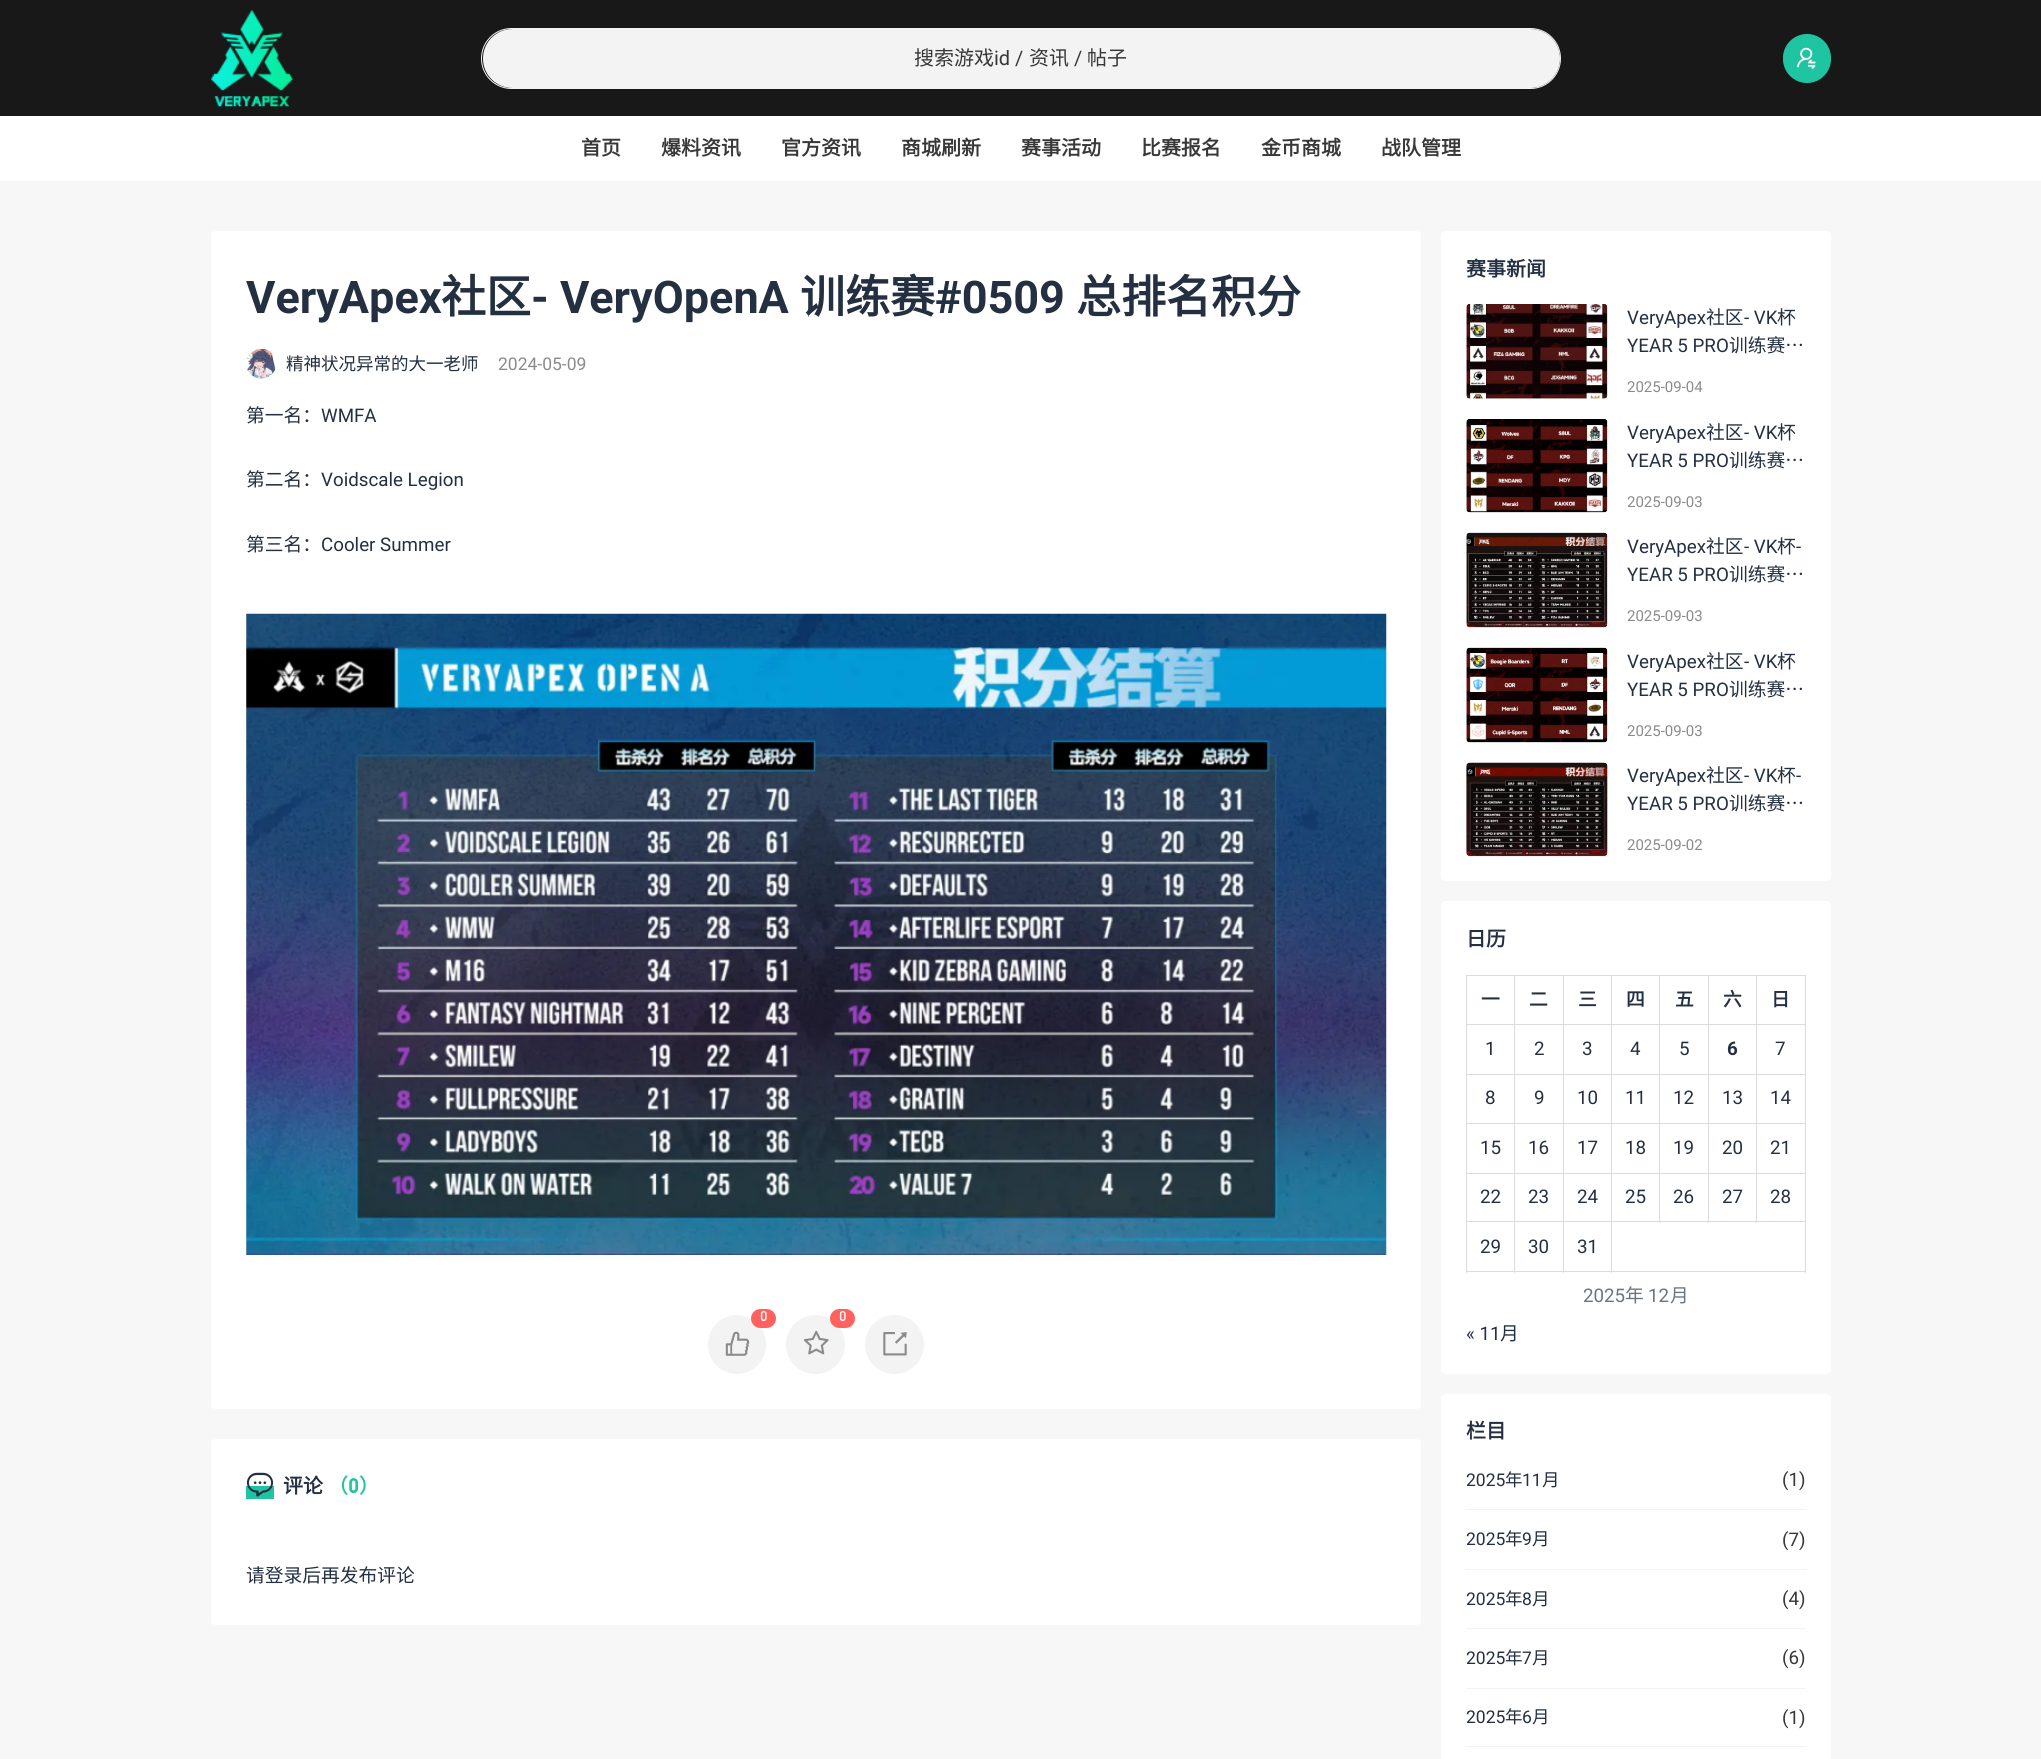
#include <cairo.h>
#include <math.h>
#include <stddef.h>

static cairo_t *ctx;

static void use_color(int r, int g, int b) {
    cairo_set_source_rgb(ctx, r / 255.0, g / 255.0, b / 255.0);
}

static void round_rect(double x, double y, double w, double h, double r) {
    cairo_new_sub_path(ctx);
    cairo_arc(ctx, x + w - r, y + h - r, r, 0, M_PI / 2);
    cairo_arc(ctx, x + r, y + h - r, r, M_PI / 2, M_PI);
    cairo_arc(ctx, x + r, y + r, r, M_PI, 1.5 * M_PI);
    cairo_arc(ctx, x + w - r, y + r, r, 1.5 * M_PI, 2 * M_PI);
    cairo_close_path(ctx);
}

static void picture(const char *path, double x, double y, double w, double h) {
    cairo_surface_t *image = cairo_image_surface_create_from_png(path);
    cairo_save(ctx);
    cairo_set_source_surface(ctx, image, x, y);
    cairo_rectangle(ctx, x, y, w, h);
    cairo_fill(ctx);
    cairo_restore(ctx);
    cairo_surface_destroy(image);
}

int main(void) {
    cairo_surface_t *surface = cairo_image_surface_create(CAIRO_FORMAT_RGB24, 2041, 1759);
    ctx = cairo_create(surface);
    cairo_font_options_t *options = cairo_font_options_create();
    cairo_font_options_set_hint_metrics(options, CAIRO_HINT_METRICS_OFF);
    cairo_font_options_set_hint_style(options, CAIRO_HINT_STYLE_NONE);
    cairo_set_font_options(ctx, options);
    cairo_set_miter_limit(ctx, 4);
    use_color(247, 247, 247);
    cairo_paint(ctx);
    use_color(24, 24, 24);
    cairo_rectangle(ctx, 0, 0, 2041, 116);
    cairo_fill(ctx);
    picture("img1.png", 211, 10, 82, 97);
    use_color(243, 243, 243);
    round_rect(483, 29, 1077, 59, 29.5);
    cairo_fill(ctx);
    round_rect(481.5, 28.5, 1079, 60, 30);
    cairo_set_line_width(ctx, 1);
    cairo_stroke(ctx);
    cairo_select_font_face(ctx, "Noto Sans CJK SC", CAIRO_FONT_SLANT_NORMAL, CAIRO_FONT_WEIGHT_NORMAL);
    cairo_set_font_size(ctx, 20);
    use_color(56, 56, 56);
    cairo_move_to(ctx, 914, 65);
    cairo_show_text(ctx, "搜索游戏");
    cairo_select_font_face(ctx, "Roboto", CAIRO_FONT_SLANT_NORMAL, CAIRO_FONT_WEIGHT_NORMAL);
    cairo_move_to(ctx, 994, 65);
    cairo_show_text(ctx, "id /");
    cairo_select_font_face(ctx, "Noto Sans CJK SC", CAIRO_FONT_SLANT_NORMAL, CAIRO_FONT_WEIGHT_NORMAL);
    cairo_move_to(ctx, 1029, 65);
    cairo_show_text(ctx, "资讯");
    cairo_select_font_face(ctx, "Roboto", CAIRO_FONT_SLANT_NORMAL, CAIRO_FONT_WEIGHT_NORMAL);
    cairo_move_to(ctx, 1074, 65);
    cairo_show_text(ctx, "/");
    cairo_select_font_face(ctx, "Noto Sans CJK SC", CAIRO_FONT_SLANT_NORMAL, CAIRO_FONT_WEIGHT_NORMAL);
    cairo_move_to(ctx, 1087, 65);
    cairo_show_text(ctx, "帖子");
    use_color(31, 197, 162);
    round_rect(1783.5, 34.5, 47, 48, 23.5);
    cairo_fill_preserve(ctx);
    cairo_stroke(ctx);
    picture("img2.png", 1797, 47, 19, 22);
    use_color(255, 255, 255);
    cairo_rectangle(ctx, 0, 116, 2041, 65);
    cairo_fill(ctx);
    cairo_select_font_face(ctx, "Noto Sans CJK SC", CAIRO_FONT_SLANT_NORMAL, CAIRO_FONT_WEIGHT_BOLD);
    use_color(56, 56, 56);
    cairo_move_to(ctx, 581, 155);
    cairo_show_text(ctx, "首页");
    cairo_move_to(ctx, 661, 155);
    cairo_show_text(ctx, "爆料资讯");
    cairo_move_to(ctx, 781, 155);
    cairo_show_text(ctx, "官方资讯");
    cairo_move_to(ctx, 901, 155);
    cairo_show_text(ctx, "商城刷新");
    cairo_move_to(ctx, 1021, 155);
    cairo_show_text(ctx, "赛事活动");
    cairo_move_to(ctx, 1141, 155);
    cairo_show_text(ctx, "比赛报名");
    cairo_move_to(ctx, 1261, 155);
    cairo_show_text(ctx, "金币商城");
    cairo_move_to(ctx, 1381, 155);
    cairo_show_text(ctx, "战队管理");
    use_color(255, 255, 255);
    round_rect(211, 231, 1210, 1178, 5);
    cairo_fill(ctx);
    cairo_select_font_face(ctx, "Roboto", CAIRO_FONT_SLANT_NORMAL, CAIRO_FONT_WEIGHT_BOLD);
    cairo_set_font_size(ctx, 45);
    use_color(36, 48, 66);
    cairo_move_to(ctx, 246, 313);
    cairo_show_text(ctx, "VeryApex");
    cairo_select_font_face(ctx, "Noto Sans CJK SC", CAIRO_FONT_SLANT_NORMAL, CAIRO_FONT_WEIGHT_BOLD);
    cairo_move_to(ctx, 441, 313);
    cairo_show_text(ctx, "社区");
    cairo_select_font_face(ctx, "Roboto", CAIRO_FONT_SLANT_NORMAL, CAIRO_FONT_WEIGHT_BOLD);
    cairo_move_to(ctx, 531, 313);
    cairo_show_text(ctx, "- VeryOpenA");
    cairo_select_font_face(ctx, "Noto Sans CJK SC", CAIRO_FONT_SLANT_NORMAL, CAIRO_FONT_WEIGHT_BOLD);
    cairo_move_to(ctx, 800, 313);
    cairo_show_text(ctx, "训练赛");
    cairo_select_font_face(ctx, "Roboto", CAIRO_FONT_SLANT_NORMAL, CAIRO_FONT_WEIGHT_BOLD);
    cairo_move_to(ctx, 935, 313);
    cairo_show_text(ctx, "#0509");
    cairo_select_font_face(ctx, "Noto Sans CJK SC", CAIRO_FONT_SLANT_NORMAL, CAIRO_FONT_WEIGHT_BOLD);
    cairo_move_to(ctx, 1076, 313);
    cairo_show_text(ctx, "总排名积分");
    picture("img3.png", 247, 348, 29, 31);
    cairo_select_font_face(ctx, "Noto Sans CJK SC", CAIRO_FONT_SLANT_NORMAL, CAIRO_FONT_WEIGHT_NORMAL);
    cairo_set_font_size(ctx, 17.5);
    cairo_move_to(ctx, 286, 370);
    cairo_show_text(ctx, "精神状况异常的大一老师");
    cairo_select_font_face(ctx, "Roboto", CAIRO_FONT_SLANT_NORMAL, CAIRO_FONT_WEIGHT_NORMAL);
    use_color(139, 139, 139);
    cairo_move_to(ctx, 498, 370);
    cairo_show_text(ctx, "2024-05-09");
    cairo_select_font_face(ctx, "Noto Sans CJK SC", CAIRO_FONT_SLANT_NORMAL, CAIRO_FONT_WEIGHT_NORMAL);
    cairo_set_font_size(ctx, 18.75);
    use_color(36, 48, 66);
    cairo_move_to(ctx, 246, 422);
    cairo_show_text(ctx, "第一名：");
    cairo_select_font_face(ctx, "Roboto", CAIRO_FONT_SLANT_NORMAL, CAIRO_FONT_WEIGHT_NORMAL);
    cairo_move_to(ctx, 321, 422);
    cairo_show_text(ctx, "WMFA");
    cairo_select_font_face(ctx, "Noto Sans CJK SC", CAIRO_FONT_SLANT_NORMAL, CAIRO_FONT_WEIGHT_NORMAL);
    cairo_move_to(ctx, 246, 486);
    cairo_show_text(ctx, "第二名：");
    cairo_select_font_face(ctx, "Roboto", CAIRO_FONT_SLANT_NORMAL, CAIRO_FONT_WEIGHT_NORMAL);
    cairo_move_to(ctx, 321, 486);
    cairo_show_text(ctx, "Voidscale Legion");
    cairo_select_font_face(ctx, "Noto Sans CJK SC", CAIRO_FONT_SLANT_NORMAL, CAIRO_FONT_WEIGHT_NORMAL);
    cairo_move_to(ctx, 246, 551);
    cairo_show_text(ctx, "第三名：");
    cairo_select_font_face(ctx, "Roboto", CAIRO_FONT_SLANT_NORMAL, CAIRO_FONT_WEIGHT_NORMAL);
    cairo_move_to(ctx, 321, 551);
    cairo_show_text(ctx, "Cooler Summer");
    picture("img4.png", 246, 613, 1141, 642);
    use_color(243, 243, 243);
    round_rect(708.5, 1315.5, 57, 58, 28.5);
    cairo_fill_preserve(ctx);
    cairo_stroke(ctx);
    use_color(255, 98, 94);
    round_rect(751, 1309, 25, 19, 9.5);
    cairo_fill(ctx);
    cairo_select_font_face(ctx, "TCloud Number", CAIRO_FONT_SLANT_NORMAL, CAIRO_FONT_WEIGHT_NORMAL);
    cairo_set_font_size(ctx, 14);
    use_color(255, 255, 255);
    cairo_move_to(ctx, 760, 1321);
    cairo_show_text(ctx, "0");
    picture("img5.png", 725, 1331, 25, 25);
    use_color(243, 243, 243);
    cairo_arc(ctx, 815.5, 1344.5, 29, 0, 2 * M_PI);
    cairo_fill_preserve(ctx);
    cairo_stroke(ctx);
    use_color(255, 98, 94);
    round_rect(830, 1309, 25, 19, 9.5);
    cairo_fill(ctx);
    use_color(255, 255, 255);
    cairo_move_to(ctx, 839, 1321);
    cairo_show_text(ctx, "0");
    picture("img6.png", 803, 1330, 26, 25);
    use_color(243, 243, 243);
    cairo_arc(ctx, 894.5, 1344.5, 29, 0, 2 * M_PI);
    cairo_fill_preserve(ctx);
    cairo_stroke(ctx);
    picture("img7.png", 883, 1332, 24, 24);
    use_color(255, 255, 255);
    round_rect(211, 1439, 1210, 186, 5);
    cairo_fill(ctx);
    use_color(31, 197, 162);
    cairo_rectangle(ctx, 246, 1486, 28, 13);
    cairo_fill(ctx);
    picture("img8.png", 246, 1472, 28, 25);
    cairo_select_font_face(ctx, "Noto Sans CJK SC", CAIRO_FONT_SLANT_NORMAL, CAIRO_FONT_WEIGHT_BOLD);
    cairo_set_font_size(ctx, 20);
    use_color(36, 48, 66);
    cairo_move_to(ctx, 283, 1493);
    cairo_show_text(ctx, "评论");
    use_color(31, 197, 162);
    cairo_move_to(ctx, 328, 1493);
    cairo_show_text(ctx, "（");
    cairo_select_font_face(ctx, "TCloud Number", CAIRO_FONT_SLANT_NORMAL, CAIRO_FONT_WEIGHT_BOLD);
    cairo_move_to(ctx, 348, 1493);
    cairo_show_text(ctx, "0");
    cairo_select_font_face(ctx, "Noto Sans CJK SC", CAIRO_FONT_SLANT_NORMAL, CAIRO_FONT_WEIGHT_BOLD);
    cairo_move_to(ctx, 359, 1493);
    cairo_show_text(ctx, "）");
    cairo_select_font_face(ctx, "Noto Sans CJK SC", CAIRO_FONT_SLANT_NORMAL, CAIRO_FONT_WEIGHT_NORMAL);
    cairo_set_font_size(ctx, 18.75);
    use_color(36, 48, 66);
    cairo_move_to(ctx, 246, 1582);
    cairo_show_text(ctx, "请登录后再发布评论");
    use_color(255, 255, 255);
    round_rect(1441, 231, 390, 650, 5);
    cairo_fill(ctx);
    cairo_select_font_face(ctx, "Noto Sans CJK SC", CAIRO_FONT_SLANT_NORMAL, CAIRO_FONT_WEIGHT_BOLD);
    cairo_set_font_size(ctx, 20);
    use_color(36, 48, 66);
    cairo_move_to(ctx, 1466, 276);
    cairo_show_text(ctx, "赛事新闻");
    use_color(251, 251, 251);
    round_rect(1466, 304, 142, 95, 4);
    cairo_fill(ctx);
    picture("img9.png", 1466, 304, 142, 95);
    cairo_select_font_face(ctx, "Roboto", CAIRO_FONT_SLANT_NORMAL, CAIRO_FONT_WEIGHT_NORMAL);
    cairo_set_font_size(ctx, 18.75);
    use_color(36, 48, 66);
    cairo_move_to(ctx, 1627, 324);
    cairo_show_text(ctx, "VeryApex");
    cairo_select_font_face(ctx, "Noto Sans CJK SC", CAIRO_FONT_SLANT_NORMAL, CAIRO_FONT_WEIGHT_NORMAL);
    cairo_move_to(ctx, 1706, 324);
    cairo_show_text(ctx, "社区");
    cairo_select_font_face(ctx, "Roboto", CAIRO_FONT_SLANT_NORMAL, CAIRO_FONT_WEIGHT_NORMAL);
    cairo_move_to(ctx, 1744, 324);
    cairo_show_text(ctx, "- VK");
    cairo_select_font_face(ctx, "Noto Sans CJK SC", CAIRO_FONT_SLANT_NORMAL, CAIRO_FONT_WEIGHT_NORMAL);
    cairo_move_to(ctx, 1777, 324);
    cairo_show_text(ctx, "杯");
    cairo_select_font_face(ctx, "Roboto", CAIRO_FONT_SLANT_NORMAL, CAIRO_FONT_WEIGHT_NORMAL);
    cairo_move_to(ctx, 1627, 352);
    cairo_show_text(ctx, "YEAR 5 PRO");
    cairo_select_font_face(ctx, "Noto Sans CJK SC", CAIRO_FONT_SLANT_NORMAL, CAIRO_FONT_WEIGHT_NORMAL);
    cairo_move_to(ctx, 1729, 352);
    cairo_show_text(ctx, "训练赛…");
    cairo_select_font_face(ctx, "Roboto", CAIRO_FONT_SLANT_NORMAL, CAIRO_FONT_WEIGHT_NORMAL);
    cairo_set_font_size(ctx, 15);
    use_color(139, 139, 139);
    cairo_move_to(ctx, 1627, 392);
    cairo_show_text(ctx, "2025-09-04");
    use_color(251, 251, 251);
    round_rect(1466, 419, 142, 94, 4);
    cairo_fill(ctx);
    picture("img10.png", 1466, 419, 142, 94);
    cairo_set_font_size(ctx, 18.75);
    use_color(36, 48, 66);
    cairo_move_to(ctx, 1627, 439);
    cairo_show_text(ctx, "VeryApex");
    cairo_select_font_face(ctx, "Noto Sans CJK SC", CAIRO_FONT_SLANT_NORMAL, CAIRO_FONT_WEIGHT_NORMAL);
    cairo_move_to(ctx, 1706, 439);
    cairo_show_text(ctx, "社区");
    cairo_select_font_face(ctx, "Roboto", CAIRO_FONT_SLANT_NORMAL, CAIRO_FONT_WEIGHT_NORMAL);
    cairo_move_to(ctx, 1744, 439);
    cairo_show_text(ctx, "- VK");
    cairo_select_font_face(ctx, "Noto Sans CJK SC", CAIRO_FONT_SLANT_NORMAL, CAIRO_FONT_WEIGHT_NORMAL);
    cairo_move_to(ctx, 1777, 439);
    cairo_show_text(ctx, "杯");
    cairo_select_font_face(ctx, "Roboto", CAIRO_FONT_SLANT_NORMAL, CAIRO_FONT_WEIGHT_NORMAL);
    cairo_move_to(ctx, 1627, 467);
    cairo_show_text(ctx, "YEAR 5 PRO");
    cairo_select_font_face(ctx, "Noto Sans CJK SC", CAIRO_FONT_SLANT_NORMAL, CAIRO_FONT_WEIGHT_NORMAL);
    cairo_move_to(ctx, 1729, 467);
    cairo_show_text(ctx, "训练赛…");
    cairo_select_font_face(ctx, "Roboto", CAIRO_FONT_SLANT_NORMAL, CAIRO_FONT_WEIGHT_NORMAL);
    cairo_set_font_size(ctx, 15);
    use_color(139, 139, 139);
    cairo_move_to(ctx, 1627, 507);
    cairo_show_text(ctx, "2025-09-03");
    use_color(251, 251, 251);
    round_rect(1466, 533, 142, 95, 4);
    cairo_fill(ctx);
    picture("img11.png", 1466, 532, 142, 96);
    cairo_set_font_size(ctx, 18.75);
    use_color(36, 48, 66);
    cairo_move_to(ctx, 1627, 553);
    cairo_show_text(ctx, "VeryApex");
    cairo_select_font_face(ctx, "Noto Sans CJK SC", CAIRO_FONT_SLANT_NORMAL, CAIRO_FONT_WEIGHT_NORMAL);
    cairo_move_to(ctx, 1706, 553);
    cairo_show_text(ctx, "社区");
    cairo_select_font_face(ctx, "Roboto", CAIRO_FONT_SLANT_NORMAL, CAIRO_FONT_WEIGHT_NORMAL);
    cairo_move_to(ctx, 1744, 553);
    cairo_show_text(ctx, "- VK");
    cairo_select_font_face(ctx, "Noto Sans CJK SC", CAIRO_FONT_SLANT_NORMAL, CAIRO_FONT_WEIGHT_NORMAL);
    cairo_move_to(ctx, 1777, 553);
    cairo_show_text(ctx, "杯");
    cairo_select_font_face(ctx, "Roboto", CAIRO_FONT_SLANT_NORMAL, CAIRO_FONT_WEIGHT_NORMAL);
    cairo_move_to(ctx, 1796, 553);
    cairo_show_text(ctx, "-");
    cairo_move_to(ctx, 1627, 581);
    cairo_show_text(ctx, "YEAR 5 PRO");
    cairo_select_font_face(ctx, "Noto Sans CJK SC", CAIRO_FONT_SLANT_NORMAL, CAIRO_FONT_WEIGHT_NORMAL);
    cairo_move_to(ctx, 1729, 581);
    cairo_show_text(ctx, "训练赛…");
    cairo_select_font_face(ctx, "Roboto", CAIRO_FONT_SLANT_NORMAL, CAIRO_FONT_WEIGHT_NORMAL);
    cairo_set_font_size(ctx, 15);
    use_color(139, 139, 139);
    cairo_move_to(ctx, 1627, 621);
    cairo_show_text(ctx, "2025-09-03");
    use_color(251, 251, 251);
    round_rect(1466, 648, 142, 95, 4);
    cairo_fill(ctx);
    picture("img12.png", 1466, 647, 142, 96);
    cairo_set_font_size(ctx, 18.75);
    use_color(36, 48, 66);
    cairo_move_to(ctx, 1627, 668);
    cairo_show_text(ctx, "VeryApex");
    cairo_select_font_face(ctx, "Noto Sans CJK SC", CAIRO_FONT_SLANT_NORMAL, CAIRO_FONT_WEIGHT_NORMAL);
    cairo_move_to(ctx, 1706, 668);
    cairo_show_text(ctx, "社区");
    cairo_select_font_face(ctx, "Roboto", CAIRO_FONT_SLANT_NORMAL, CAIRO_FONT_WEIGHT_NORMAL);
    cairo_move_to(ctx, 1744, 668);
    cairo_show_text(ctx, "- VK");
    cairo_select_font_face(ctx, "Noto Sans CJK SC", CAIRO_FONT_SLANT_NORMAL, CAIRO_FONT_WEIGHT_NORMAL);
    cairo_move_to(ctx, 1777, 668);
    cairo_show_text(ctx, "杯");
    cairo_select_font_face(ctx, "Roboto", CAIRO_FONT_SLANT_NORMAL, CAIRO_FONT_WEIGHT_NORMAL);
    cairo_move_to(ctx, 1627, 696);
    cairo_show_text(ctx, "YEAR 5 PRO");
    cairo_select_font_face(ctx, "Noto Sans CJK SC", CAIRO_FONT_SLANT_NORMAL, CAIRO_FONT_WEIGHT_NORMAL);
    cairo_move_to(ctx, 1729, 696);
    cairo_show_text(ctx, "训练赛…");
    cairo_select_font_face(ctx, "Roboto", CAIRO_FONT_SLANT_NORMAL, CAIRO_FONT_WEIGHT_NORMAL);
    cairo_set_font_size(ctx, 15);
    use_color(139, 139, 139);
    cairo_move_to(ctx, 1627, 736);
    cairo_show_text(ctx, "2025-09-03");
    use_color(251, 251, 251);
    round_rect(1466, 763, 142, 93, 4);
    cairo_fill(ctx);
    picture("img13.png", 1466, 762, 142, 95);
    cairo_set_font_size(ctx, 18.75);
    use_color(36, 48, 66);
    cairo_move_to(ctx, 1627, 782);
    cairo_show_text(ctx, "VeryApex");
    cairo_select_font_face(ctx, "Noto Sans CJK SC", CAIRO_FONT_SLANT_NORMAL, CAIRO_FONT_WEIGHT_NORMAL);
    cairo_move_to(ctx, 1706, 782);
    cairo_show_text(ctx, "社区");
    cairo_select_font_face(ctx, "Roboto", CAIRO_FONT_SLANT_NORMAL, CAIRO_FONT_WEIGHT_NORMAL);
    cairo_move_to(ctx, 1744, 782);
    cairo_show_text(ctx, "- VK");
    cairo_select_font_face(ctx, "Noto Sans CJK SC", CAIRO_FONT_SLANT_NORMAL, CAIRO_FONT_WEIGHT_NORMAL);
    cairo_move_to(ctx, 1777, 782);
    cairo_show_text(ctx, "杯");
    cairo_select_font_face(ctx, "Roboto", CAIRO_FONT_SLANT_NORMAL, CAIRO_FONT_WEIGHT_NORMAL);
    cairo_move_to(ctx, 1796, 782);
    cairo_show_text(ctx, "-");
    cairo_move_to(ctx, 1627, 810);
    cairo_show_text(ctx, "YEAR 5 PRO");
    cairo_select_font_face(ctx, "Noto Sans CJK SC", CAIRO_FONT_SLANT_NORMAL, CAIRO_FONT_WEIGHT_NORMAL);
    cairo_move_to(ctx, 1729, 810);
    cairo_show_text(ctx, "训练赛…");
    cairo_select_font_face(ctx, "Roboto", CAIRO_FONT_SLANT_NORMAL, CAIRO_FONT_WEIGHT_NORMAL);
    cairo_set_font_size(ctx, 15);
    use_color(139, 139, 139);
    cairo_move_to(ctx, 1627, 850);
    cairo_show_text(ctx, "2025-09-02");
    use_color(255, 255, 255);
    round_rect(1441, 901, 390, 473, 5);
    cairo_fill(ctx);
    cairo_select_font_face(ctx, "Noto Sans CJK SC", CAIRO_FONT_SLANT_NORMAL, CAIRO_FONT_WEIGHT_BOLD);
    cairo_set_font_size(ctx, 20);
    use_color(36, 48, 66);
    cairo_move_to(ctx, 1466, 946);
    cairo_show_text(ctx, "日历");
    use_color(220, 220, 220);
    cairo_rectangle(ctx, 1756, 975, 50, 1);
    cairo_fill(ctx);
    cairo_rectangle(ctx, 1756, 1024, 50, 1);
    cairo_fill(ctx);
    cairo_rectangle(ctx, 1756, 1074, 50, 1);
    cairo_fill(ctx);
    cairo_rectangle(ctx, 1756, 1123, 50, 1);
    cairo_fill(ctx);
    cairo_rectangle(ctx, 1756, 1173, 50, 1);
    cairo_fill(ctx);
    cairo_rectangle(ctx, 1611, 1221, 195, 1);
    cairo_fill(ctx);
    cairo_rectangle(ctx, 1756, 1173, 1, 50);
    cairo_fill(ctx);
    cairo_rectangle(ctx, 1708, 1173, 50, 1);
    cairo_fill(ctx);
    cairo_rectangle(ctx, 1756, 1123, 1, 51);
    cairo_fill(ctx);
    cairo_rectangle(ctx, 1708, 1123, 50, 1);
    cairo_fill(ctx);
    cairo_rectangle(ctx, 1756, 1074, 1, 50);
    cairo_fill(ctx);
    cairo_rectangle(ctx, 1708, 1074, 50, 1);
    cairo_fill(ctx);
    cairo_rectangle(ctx, 1756, 1024, 1, 51);
    cairo_fill(ctx);
    cairo_rectangle(ctx, 1708, 1024, 50, 1);
    cairo_fill(ctx);
    cairo_rectangle(ctx, 1756, 975, 1, 50);
    cairo_fill(ctx);
    cairo_rectangle(ctx, 1708, 975, 50, 1);
    cairo_fill(ctx);
    cairo_rectangle(ctx, 1708, 1173, 1, 50);
    cairo_fill(ctx);
    cairo_rectangle(ctx, 1659, 1173, 50, 1);
    cairo_fill(ctx);
    cairo_rectangle(ctx, 1708, 1123, 1, 51);
    cairo_fill(ctx);
    cairo_rectangle(ctx, 1659, 1123, 50, 1);
    cairo_fill(ctx);
    cairo_rectangle(ctx, 1708, 1074, 1, 50);
    cairo_fill(ctx);
    cairo_rectangle(ctx, 1659, 1074, 50, 1);
    cairo_fill(ctx);
    cairo_rectangle(ctx, 1708, 1024, 1, 51);
    cairo_fill(ctx);
    cairo_rectangle(ctx, 1659, 1024, 50, 1);
    cairo_fill(ctx);
    cairo_rectangle(ctx, 1708, 975, 1, 50);
    cairo_fill(ctx);
    cairo_rectangle(ctx, 1659, 975, 50, 1);
    cairo_fill(ctx);
    cairo_rectangle(ctx, 1659, 1173, 1, 50);
    cairo_fill(ctx);
    cairo_rectangle(ctx, 1611, 1173, 49, 1);
    cairo_fill(ctx);
    cairo_rectangle(ctx, 1659, 1123, 1, 51);
    cairo_fill(ctx);
    cairo_rectangle(ctx, 1611, 1123, 49, 1);
    cairo_fill(ctx);
    cairo_rectangle(ctx, 1659, 1074, 1, 50);
    cairo_fill(ctx);
    cairo_rectangle(ctx, 1611, 1074, 49, 1);
    cairo_fill(ctx);
    cairo_rectangle(ctx, 1659, 1024, 1, 51);
    cairo_fill(ctx);
    cairo_rectangle(ctx, 1611, 1024, 49, 1);
    cairo_fill(ctx);
    cairo_rectangle(ctx, 1659, 975, 1, 50);
    cairo_fill(ctx);
    cairo_rectangle(ctx, 1611, 975, 49, 1);
    cairo_fill(ctx);
    cairo_rectangle(ctx, 1805, 1221, 1, 52);
    cairo_fill(ctx);
    cairo_rectangle(ctx, 1611, 1271, 195, 1);
    cairo_fill(ctx);
    cairo_rectangle(ctx, 1611, 1221, 1, 52);
    cairo_fill(ctx);
    cairo_rectangle(ctx, 1563, 1221, 50, 1);
    cairo_fill(ctx);
    cairo_rectangle(ctx, 1611, 1173, 1, 50);
    cairo_fill(ctx);
    cairo_rectangle(ctx, 1563, 1173, 50, 1);
    cairo_fill(ctx);
    cairo_rectangle(ctx, 1611, 1123, 1, 51);
    cairo_fill(ctx);
    cairo_rectangle(ctx, 1563, 1123, 50, 1);
    cairo_fill(ctx);
    cairo_rectangle(ctx, 1611, 1074, 1, 50);
    cairo_fill(ctx);
    cairo_rectangle(ctx, 1563, 1074, 50, 1);
    cairo_fill(ctx);
    cairo_rectangle(ctx, 1611, 1024, 1, 51);
    cairo_fill(ctx);
    cairo_rectangle(ctx, 1563, 1024, 50, 1);
    cairo_fill(ctx);
    cairo_rectangle(ctx, 1611, 975, 1, 50);
    cairo_fill(ctx);
    cairo_rectangle(ctx, 1563, 975, 50, 1);
    cairo_fill(ctx);
    cairo_rectangle(ctx, 1563, 1271, 50, 1);
    cairo_fill(ctx);
    cairo_rectangle(ctx, 1563, 1221, 1, 52);
    cairo_fill(ctx);
    cairo_rectangle(ctx, 1514, 1221, 50, 1);
    cairo_fill(ctx);
    cairo_rectangle(ctx, 1563, 1173, 1, 50);
    cairo_fill(ctx);
    cairo_rectangle(ctx, 1514, 1173, 50, 1);
    cairo_fill(ctx);
    cairo_rectangle(ctx, 1563, 1123, 1, 51);
    cairo_fill(ctx);
    cairo_rectangle(ctx, 1514, 1123, 50, 1);
    cairo_fill(ctx);
    cairo_rectangle(ctx, 1563, 1074, 1, 50);
    cairo_fill(ctx);
    cairo_rectangle(ctx, 1514, 1074, 50, 1);
    cairo_fill(ctx);
    cairo_rectangle(ctx, 1563, 1024, 1, 51);
    cairo_fill(ctx);
    cairo_rectangle(ctx, 1514, 1024, 50, 1);
    cairo_fill(ctx);
    cairo_rectangle(ctx, 1563, 975, 1, 50);
    cairo_fill(ctx);
    cairo_rectangle(ctx, 1514, 975, 50, 1);
    cairo_fill(ctx);
    cairo_rectangle(ctx, 1514, 1271, 50, 1);
    cairo_fill(ctx);
    cairo_rectangle(ctx, 1514, 1221, 1, 52);
    cairo_fill(ctx);
    cairo_rectangle(ctx, 1466, 1221, 49, 1);
    cairo_fill(ctx);
    cairo_rectangle(ctx, 1514, 1173, 1, 50);
    cairo_fill(ctx);
    cairo_rectangle(ctx, 1466, 1173, 49, 1);
    cairo_fill(ctx);
    cairo_rectangle(ctx, 1514, 1123, 1, 51);
    cairo_fill(ctx);
    cairo_rectangle(ctx, 1466, 1123, 49, 1);
    cairo_fill(ctx);
    cairo_rectangle(ctx, 1514, 1074, 1, 50);
    cairo_fill(ctx);
    cairo_rectangle(ctx, 1466, 1074, 49, 1);
    cairo_fill(ctx);
    cairo_rectangle(ctx, 1514, 1024, 1, 51);
    cairo_fill(ctx);
    cairo_rectangle(ctx, 1466, 1024, 49, 1);
    cairo_fill(ctx);
    cairo_rectangle(ctx, 1514, 975, 1, 50);
    cairo_fill(ctx);
    cairo_rectangle(ctx, 1466, 975, 49, 1);
    cairo_fill(ctx);
    cairo_rectangle(ctx, 1466, 1271, 49, 1);
    cairo_fill(ctx);
    cairo_rectangle(ctx, 1466, 1221, 1, 52);
    cairo_fill(ctx);
    cairo_rectangle(ctx, 1466, 1173, 1, 50);
    cairo_fill(ctx);
    cairo_rectangle(ctx, 1466, 1123, 1, 51);
    cairo_fill(ctx);
    cairo_rectangle(ctx, 1466, 1074, 1, 50);
    cairo_fill(ctx);
    cairo_rectangle(ctx, 1466, 1024, 1, 51);
    cairo_fill(ctx);
    cairo_rectangle(ctx, 1466, 975, 1, 50);
    cairo_fill(ctx);
    cairo_set_font_size(ctx, 18.75);
    use_color(36, 48, 66);
    cairo_move_to(ctx, 1481, 1006);
    cairo_show_text(ctx, "一");
    cairo_move_to(ctx, 1529, 1006);
    cairo_show_text(ctx, "二");
    cairo_move_to(ctx, 1578, 1006);
    cairo_show_text(ctx, "三");
    cairo_move_to(ctx, 1626, 1006);
    cairo_show_text(ctx, "四");
    cairo_move_to(ctx, 1675, 1006);
    cairo_show_text(ctx, "五");
    cairo_move_to(ctx, 1723, 1006);
    cairo_show_text(ctx, "六");
    use_color(220, 220, 220);
    cairo_rectangle(ctx, 1805, 1173, 1, 50);
    cairo_fill(ctx);
    cairo_rectangle(ctx, 1805, 1123, 1, 51);
    cairo_fill(ctx);
    cairo_rectangle(ctx, 1805, 1074, 1, 50);
    cairo_fill(ctx);
    cairo_rectangle(ctx, 1805, 1024, 1, 51);
    cairo_fill(ctx);
    cairo_rectangle(ctx, 1805, 975, 1, 50);
    cairo_fill(ctx);
    use_color(36, 48, 66);
    cairo_move_to(ctx, 1771, 1006);
    cairo_show_text(ctx, "日");
    cairo_select_font_face(ctx, "Roboto", CAIRO_FONT_SLANT_NORMAL, CAIRO_FONT_WEIGHT_NORMAL);
    cairo_move_to(ctx, 1485, 1055);
    cairo_show_text(ctx, "1");
    cairo_move_to(ctx, 1534, 1055);
    cairo_show_text(ctx, "2");
    cairo_move_to(ctx, 1582, 1055);
    cairo_show_text(ctx, "3");
    cairo_move_to(ctx, 1630, 1055);
    cairo_show_text(ctx, "4");
    cairo_move_to(ctx, 1679, 1055);
    cairo_show_text(ctx, "5");
    cairo_select_font_face(ctx, "Roboto", CAIRO_FONT_SLANT_NORMAL, CAIRO_FONT_WEIGHT_BOLD);
    cairo_move_to(ctx, 1727, 1055);
    cairo_show_text(ctx, "6");
    cairo_select_font_face(ctx, "Roboto", CAIRO_FONT_SLANT_NORMAL, CAIRO_FONT_WEIGHT_NORMAL);
    cairo_move_to(ctx, 1775, 1055);
    cairo_show_text(ctx, "7");
    cairo_move_to(ctx, 1485, 1104);
    cairo_show_text(ctx, "8");
    cairo_move_to(ctx, 1534, 1104);
    cairo_show_text(ctx, "9");
    cairo_move_to(ctx, 1577, 1104);
    cairo_show_text(ctx, "10");
    cairo_move_to(ctx, 1625, 1104);
    cairo_show_text(ctx, "11");
    cairo_move_to(ctx, 1673, 1104);
    cairo_show_text(ctx, "12");
    cairo_move_to(ctx, 1722, 1104);
    cairo_show_text(ctx, "13");
    cairo_move_to(ctx, 1770, 1104);
    cairo_show_text(ctx, "14");
    cairo_move_to(ctx, 1480, 1154);
    cairo_show_text(ctx, "15");
    cairo_move_to(ctx, 1528, 1154);
    cairo_show_text(ctx, "16");
    cairo_move_to(ctx, 1577, 1154);
    cairo_show_text(ctx, "17");
    cairo_move_to(ctx, 1625, 1154);
    cairo_show_text(ctx, "18");
    cairo_move_to(ctx, 1673, 1154);
    cairo_show_text(ctx, "19");
    cairo_move_to(ctx, 1722, 1154);
    cairo_show_text(ctx, "20");
    cairo_move_to(ctx, 1770, 1154);
    cairo_show_text(ctx, "21");
    cairo_move_to(ctx, 1480, 1203);
    cairo_show_text(ctx, "22");
    cairo_move_to(ctx, 1528, 1203);
    cairo_show_text(ctx, "23");
    cairo_move_to(ctx, 1577, 1203);
    cairo_show_text(ctx, "24");
    cairo_move_to(ctx, 1625, 1203);
    cairo_show_text(ctx, "25");
    cairo_move_to(ctx, 1673, 1203);
    cairo_show_text(ctx, "26");
    cairo_move_to(ctx, 1722, 1203);
    cairo_show_text(ctx, "27");
    cairo_move_to(ctx, 1770, 1203);
    cairo_show_text(ctx, "28");
    cairo_move_to(ctx, 1480, 1253);
    cairo_show_text(ctx, "29");
    cairo_move_to(ctx, 1528, 1253);
    cairo_show_text(ctx, "30");
    cairo_move_to(ctx, 1577, 1253);
    cairo_show_text(ctx, "31");
    use_color(108, 117, 125);
    cairo_move_to(ctx, 1583, 1302);
    cairo_show_text(ctx, "2025");
    cairo_select_font_face(ctx, "Noto Sans CJK SC", CAIRO_FONT_SLANT_NORMAL, CAIRO_FONT_WEIGHT_NORMAL);
    cairo_move_to(ctx, 1625, 1302);
    cairo_show_text(ctx, "年");
    cairo_select_font_face(ctx, "Roboto", CAIRO_FONT_SLANT_NORMAL, CAIRO_FONT_WEIGHT_NORMAL);
    cairo_move_to(ctx, 1648, 1302);
    cairo_show_text(ctx, "12");
    cairo_select_font_face(ctx, "Noto Sans CJK SC", CAIRO_FONT_SLANT_NORMAL, CAIRO_FONT_WEIGHT_NORMAL);
    cairo_move_to(ctx, 1670, 1302);
    cairo_show_text(ctx, "月");
    cairo_select_font_face(ctx, "Roboto", CAIRO_FONT_SLANT_NORMAL, CAIRO_FONT_WEIGHT_NORMAL);
    use_color(36, 48, 66);
    cairo_move_to(ctx, 1466, 1340);
    cairo_show_text(ctx, "« 11");
    cairo_select_font_face(ctx, "Noto Sans CJK SC", CAIRO_FONT_SLANT_NORMAL, CAIRO_FONT_WEIGHT_NORMAL);
    cairo_move_to(ctx, 1500, 1340);
    cairo_show_text(ctx, "月");
    use_color(255, 255, 255);
    round_rect(1441, 1394, 390, 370, 5);
    cairo_fill(ctx);
    cairo_select_font_face(ctx, "Noto Sans CJK SC", CAIRO_FONT_SLANT_NORMAL, CAIRO_FONT_WEIGHT_BOLD);
    cairo_set_font_size(ctx, 20);
    use_color(36, 48, 66);
    cairo_move_to(ctx, 1466, 1438);
    cairo_show_text(ctx, "栏目");
    cairo_select_font_face(ctx, "Roboto", CAIRO_FONT_SLANT_NORMAL, CAIRO_FONT_WEIGHT_NORMAL);
    cairo_set_font_size(ctx, 17.5);
    cairo_move_to(ctx, 1466, 1486);
    cairo_show_text(ctx, "2025");
    cairo_select_font_face(ctx, "Noto Sans CJK SC", CAIRO_FONT_SLANT_NORMAL, CAIRO_FONT_WEIGHT_NORMAL);
    cairo_move_to(ctx, 1505, 1486);
    cairo_show_text(ctx, "年");
    cairo_select_font_face(ctx, "Roboto", CAIRO_FONT_SLANT_NORMAL, CAIRO_FONT_WEIGHT_NORMAL);
    cairo_move_to(ctx, 1522, 1486);
    cairo_show_text(ctx, "11");
    cairo_select_font_face(ctx, "Noto Sans CJK SC", CAIRO_FONT_SLANT_NORMAL, CAIRO_FONT_WEIGHT_NORMAL);
    cairo_move_to(ctx, 1542, 1486);
    cairo_show_text(ctx, "月");
    cairo_select_font_face(ctx, "Roboto", CAIRO_FONT_SLANT_NORMAL, CAIRO_FONT_WEIGHT_NORMAL);
    cairo_set_font_size(ctx, 18.75);
    use_color(56, 56, 56);
    cairo_move_to(ctx, 1782, 1486);
    cairo_show_text(ctx, "(1)");
    use_color(243, 243, 243);
    cairo_rectangle(ctx, 1466, 1509, 340, 1);
    cairo_fill(ctx);
    cairo_set_font_size(ctx, 17.5);
    use_color(36, 48, 66);
    cairo_move_to(ctx, 1466, 1545);
    cairo_show_text(ctx, "2025");
    cairo_select_font_face(ctx, "Noto Sans CJK SC", CAIRO_FONT_SLANT_NORMAL, CAIRO_FONT_WEIGHT_NORMAL);
    cairo_move_to(ctx, 1505, 1545);
    cairo_show_text(ctx, "年");
    cairo_select_font_face(ctx, "Roboto", CAIRO_FONT_SLANT_NORMAL, CAIRO_FONT_WEIGHT_NORMAL);
    cairo_move_to(ctx, 1522, 1545);
    cairo_show_text(ctx, "9");
    cairo_select_font_face(ctx, "Noto Sans CJK SC", CAIRO_FONT_SLANT_NORMAL, CAIRO_FONT_WEIGHT_NORMAL);
    cairo_move_to(ctx, 1532, 1545);
    cairo_show_text(ctx, "月");
    cairo_select_font_face(ctx, "Roboto", CAIRO_FONT_SLANT_NORMAL, CAIRO_FONT_WEIGHT_NORMAL);
    cairo_set_font_size(ctx, 18.75);
    use_color(56, 56, 56);
    cairo_move_to(ctx, 1782, 1546);
    cairo_show_text(ctx, "(7)");
    use_color(243, 243, 243);
    cairo_rectangle(ctx, 1466, 1569, 340, 1);
    cairo_fill(ctx);
    cairo_set_font_size(ctx, 17.5);
    use_color(36, 48, 66);
    cairo_move_to(ctx, 1466, 1605);
    cairo_show_text(ctx, "2025");
    cairo_select_font_face(ctx, "Noto Sans CJK SC", CAIRO_FONT_SLANT_NORMAL, CAIRO_FONT_WEIGHT_NORMAL);
    cairo_move_to(ctx, 1505, 1605);
    cairo_show_text(ctx, "年");
    cairo_select_font_face(ctx, "Roboto", CAIRO_FONT_SLANT_NORMAL, CAIRO_FONT_WEIGHT_NORMAL);
    cairo_move_to(ctx, 1522, 1605);
    cairo_show_text(ctx, "8");
    cairo_select_font_face(ctx, "Noto Sans CJK SC", CAIRO_FONT_SLANT_NORMAL, CAIRO_FONT_WEIGHT_NORMAL);
    cairo_move_to(ctx, 1532, 1605);
    cairo_show_text(ctx, "月");
    cairo_select_font_face(ctx, "Roboto", CAIRO_FONT_SLANT_NORMAL, CAIRO_FONT_WEIGHT_NORMAL);
    cairo_set_font_size(ctx, 18.75);
    use_color(56, 56, 56);
    cairo_move_to(ctx, 1782, 1605);
    cairo_show_text(ctx, "(4)");
    use_color(243, 243, 243);
    cairo_rectangle(ctx, 1466, 1628, 340, 1);
    cairo_fill(ctx);
    cairo_set_font_size(ctx, 17.5);
    use_color(36, 48, 66);
    cairo_move_to(ctx, 1466, 1664);
    cairo_show_text(ctx, "2025");
    cairo_select_font_face(ctx, "Noto Sans CJK SC", CAIRO_FONT_SLANT_NORMAL, CAIRO_FONT_WEIGHT_NORMAL);
    cairo_move_to(ctx, 1505, 1664);
    cairo_show_text(ctx, "年");
    cairo_select_font_face(ctx, "Roboto", CAIRO_FONT_SLANT_NORMAL, CAIRO_FONT_WEIGHT_NORMAL);
    cairo_move_to(ctx, 1522, 1664);
    cairo_show_text(ctx, "7");
    cairo_select_font_face(ctx, "Noto Sans CJK SC", CAIRO_FONT_SLANT_NORMAL, CAIRO_FONT_WEIGHT_NORMAL);
    cairo_move_to(ctx, 1532, 1664);
    cairo_show_text(ctx, "月");
    cairo_select_font_face(ctx, "Roboto", CAIRO_FONT_SLANT_NORMAL, CAIRO_FONT_WEIGHT_NORMAL);
    cairo_set_font_size(ctx, 18.75);
    use_color(56, 56, 56);
    cairo_move_to(ctx, 1782, 1664);
    cairo_show_text(ctx, "(6)");
    use_color(243, 243, 243);
    cairo_rectangle(ctx, 1466, 1688, 340, 1);
    cairo_fill(ctx);
    cairo_set_font_size(ctx, 17.5);
    use_color(36, 48, 66);
    cairo_move_to(ctx, 1466, 1723);
    cairo_show_text(ctx, "2025");
    cairo_select_font_face(ctx, "Noto Sans CJK SC", CAIRO_FONT_SLANT_NORMAL, CAIRO_FONT_WEIGHT_NORMAL);
    cairo_move_to(ctx, 1505, 1723);
    cairo_show_text(ctx, "年");
    cairo_select_font_face(ctx, "Roboto", CAIRO_FONT_SLANT_NORMAL, CAIRO_FONT_WEIGHT_NORMAL);
    cairo_move_to(ctx, 1522, 1723);
    cairo_show_text(ctx, "6");
    cairo_select_font_face(ctx, "Noto Sans CJK SC", CAIRO_FONT_SLANT_NORMAL, CAIRO_FONT_WEIGHT_NORMAL);
    cairo_move_to(ctx, 1532, 1723);
    cairo_show_text(ctx, "月");
    cairo_select_font_face(ctx, "Roboto", CAIRO_FONT_SLANT_NORMAL, CAIRO_FONT_WEIGHT_NORMAL);
    cairo_set_font_size(ctx, 18.75);
    use_color(56, 56, 56);
    cairo_move_to(ctx, 1782, 1724);
    cairo_show_text(ctx, "(1)");
    use_color(243, 243, 243);
    cairo_rectangle(ctx, 1466, 1746, 340, 1);
    cairo_fill(ctx);
    cairo_surface_write_to_png(surface, "result.png");
    cairo_font_options_destroy(options);
    cairo_destroy(ctx);
    cairo_surface_destroy(surface);
    return 0;
}
